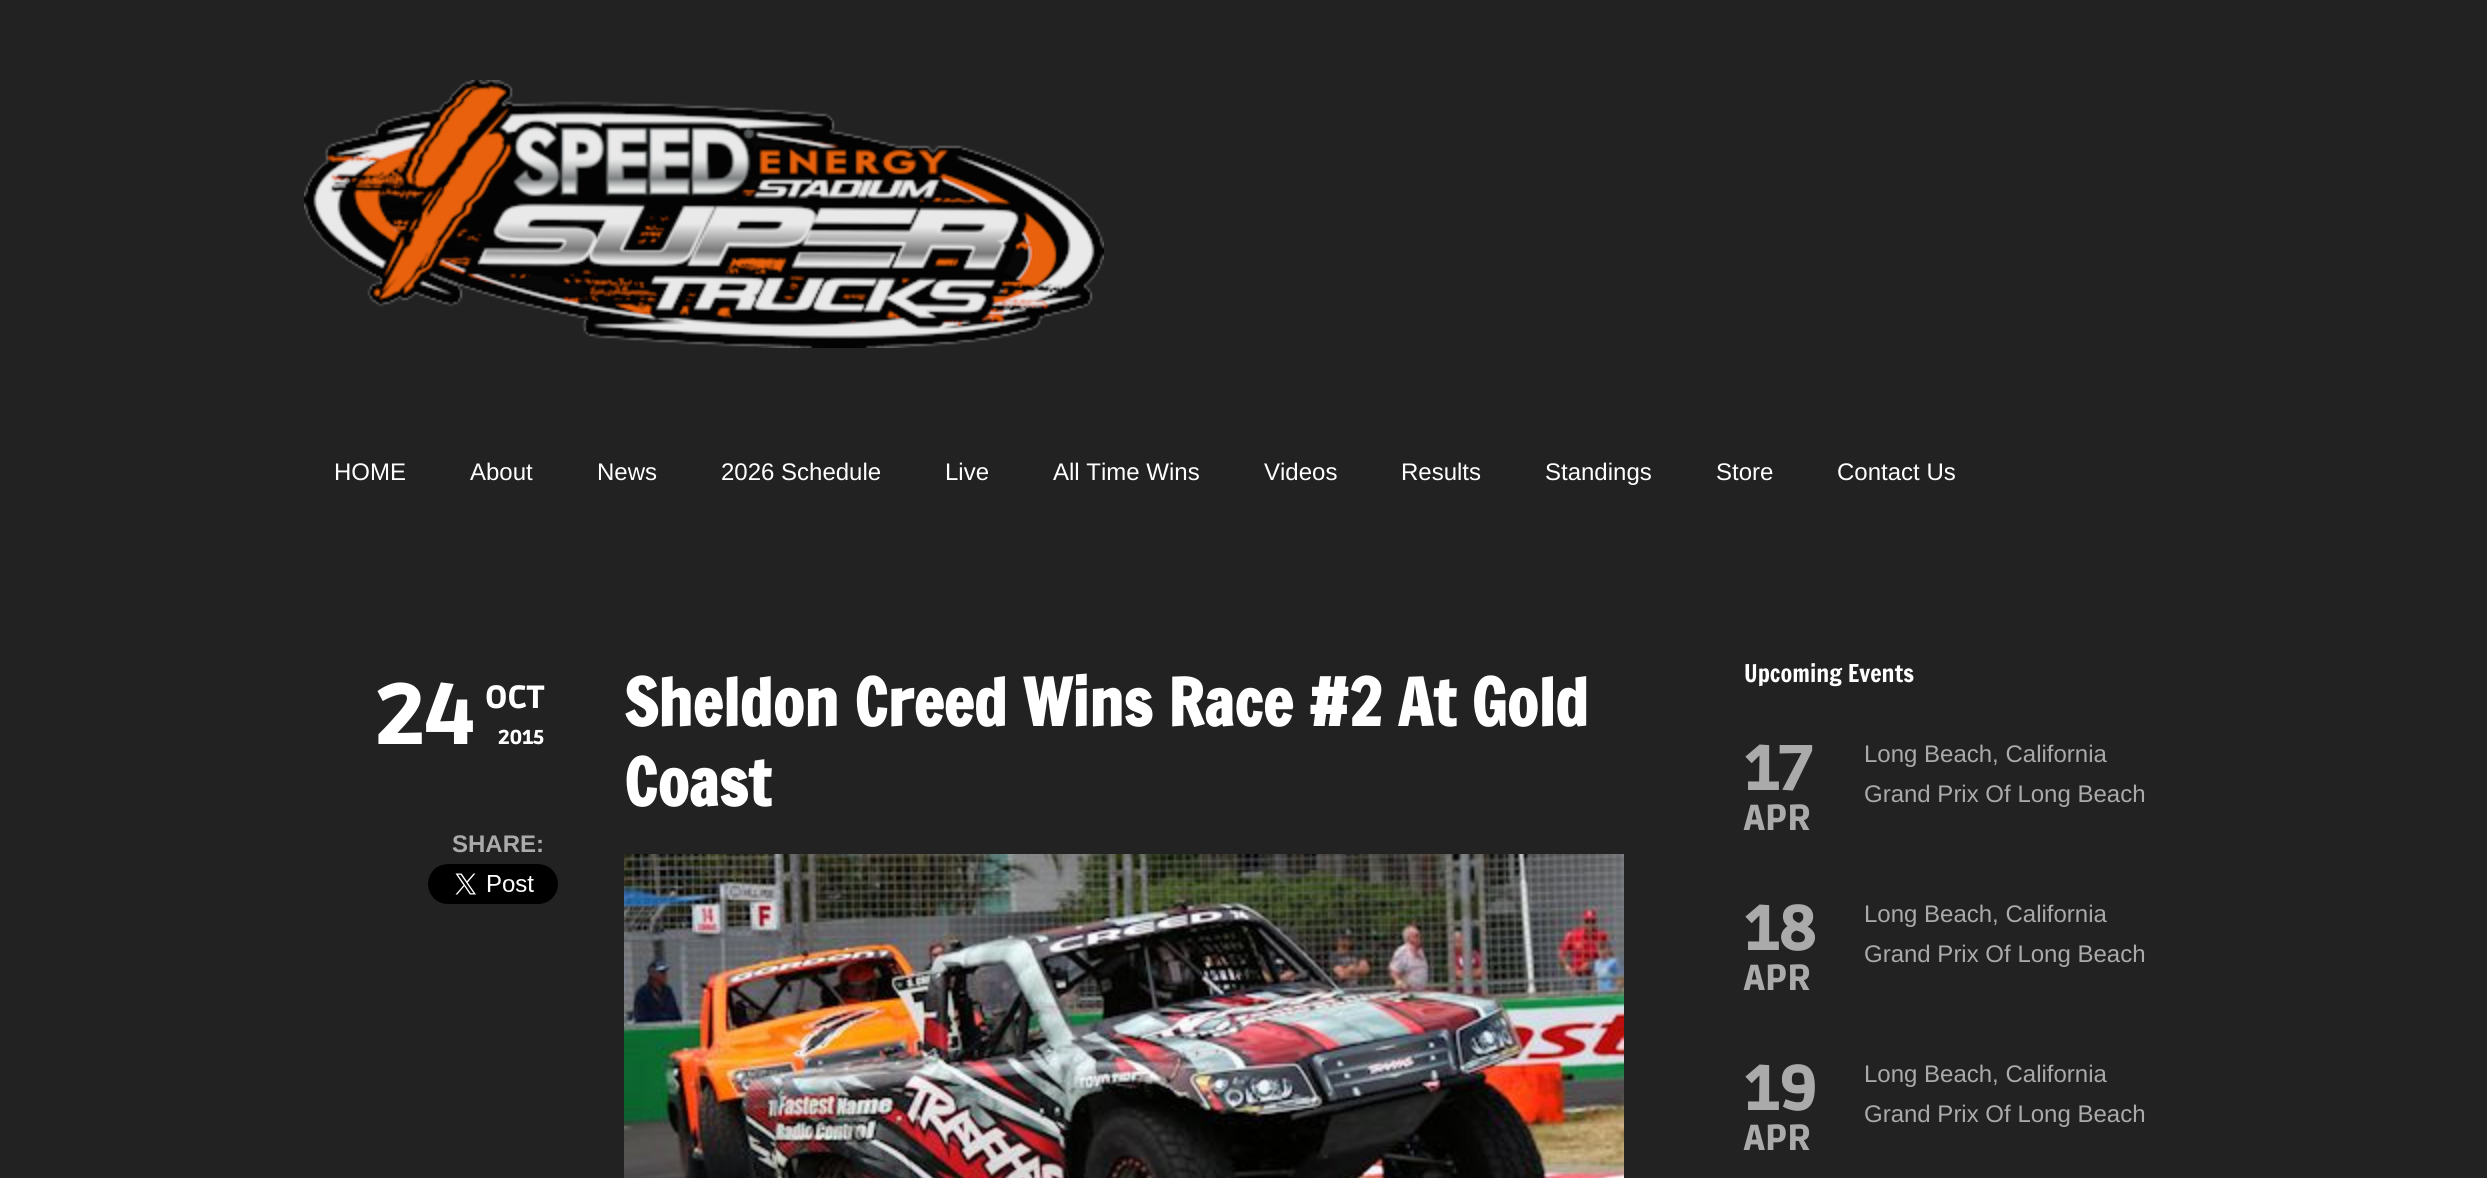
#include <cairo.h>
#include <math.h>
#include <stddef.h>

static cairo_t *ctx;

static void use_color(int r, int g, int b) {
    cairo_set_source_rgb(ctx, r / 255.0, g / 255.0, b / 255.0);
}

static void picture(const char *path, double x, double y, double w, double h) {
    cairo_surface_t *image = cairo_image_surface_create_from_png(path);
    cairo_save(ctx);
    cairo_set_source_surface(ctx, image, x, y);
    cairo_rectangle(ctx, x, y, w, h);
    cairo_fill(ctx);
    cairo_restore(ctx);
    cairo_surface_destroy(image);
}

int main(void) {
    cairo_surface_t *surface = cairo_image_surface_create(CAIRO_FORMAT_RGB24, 2487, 1178);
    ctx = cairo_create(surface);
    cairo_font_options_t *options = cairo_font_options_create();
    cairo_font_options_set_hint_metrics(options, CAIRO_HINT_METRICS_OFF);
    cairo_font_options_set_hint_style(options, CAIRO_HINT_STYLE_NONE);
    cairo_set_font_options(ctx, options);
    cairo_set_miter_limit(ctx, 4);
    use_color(34, 34, 34);
    cairo_paint(ctx);
    picture("img1.png", 304, 80, 800, 268);
    cairo_select_font_face(ctx, "Liberation Sans", CAIRO_FONT_SLANT_NORMAL, CAIRO_FONT_WEIGHT_NORMAL);
    cairo_set_font_size(ctx, 24);
    use_color(255, 255, 255);
    cairo_move_to(ctx, 334, 480);
    cairo_show_text(ctx, "HOME");
    cairo_move_to(ctx, 470, 480);
    cairo_show_text(ctx, "About");
    cairo_move_to(ctx, 597, 480);
    cairo_show_text(ctx, "News");
    cairo_move_to(ctx, 721, 480);
    cairo_show_text(ctx, "2026 Schedule");
    cairo_move_to(ctx, 945, 480);
    cairo_show_text(ctx, "Live");
    cairo_move_to(ctx, 1053, 480);
    cairo_show_text(ctx, "All Time Wins");
    cairo_move_to(ctx, 1264, 480);
    cairo_show_text(ctx, "Videos");
    cairo_move_to(ctx, 1401, 480);
    cairo_show_text(ctx, "Results");
    cairo_move_to(ctx, 1545, 480);
    cairo_show_text(ctx, "Standings");
    cairo_move_to(ctx, 1716, 480);
    cairo_show_text(ctx, "Store");
    cairo_move_to(ctx, 1837, 480);
    cairo_show_text(ctx, "Contact Us");
    cairo_select_font_face(ctx, "Ruda Black", CAIRO_FONT_SLANT_NORMAL, CAIRO_FONT_WEIGHT_NORMAL);
    cairo_set_font_size(ctx, 86);
    cairo_move_to(ctx, 375, 744);
    cairo_show_text(ctx, "24");
    cairo_set_font_size(ctx, 32);
    cairo_move_to(ctx, 485, 708);
    cairo_show_text(ctx, "OCT");
    cairo_set_font_size(ctx, 20);
    cairo_move_to(ctx, 498, 744);
    cairo_show_text(ctx, "2015");
    cairo_select_font_face(ctx, "Liberation Sans", CAIRO_FONT_SLANT_NORMAL, CAIRO_FONT_WEIGHT_BOLD);
    cairo_set_font_size(ctx, 24);
    use_color(170, 170, 170);
    cairo_move_to(ctx, 452, 852);
    cairo_show_text(ctx, "SHARE:");
    picture("img2.png", 428, 864, 130, 40);
    cairo_select_font_face(ctx, "Francois One", CAIRO_FONT_SLANT_NORMAL, CAIRO_FONT_WEIGHT_BOLD);
    cairo_set_font_size(ctx, 64);
    use_color(255, 255, 255);
    cairo_move_to(ctx, 624, 726);
    cairo_show_text(ctx, "Sheldon Creed Wins Race #2 At Gold");
    cairo_move_to(ctx, 624, 806);
    cairo_show_text(ctx, "Coast");
    picture("img3.png", 624, 854, 1000, 324);
    cairo_select_font_face(ctx, "Francois One", CAIRO_FONT_SLANT_NORMAL, CAIRO_FONT_WEIGHT_NORMAL);
    cairo_set_font_size(ctx, 24);
    cairo_move_to(ctx, 1744, 682);
    cairo_show_text(ctx, "Upcoming Events");
    cairo_select_font_face(ctx, "Ruda Black", CAIRO_FONT_SLANT_NORMAL, CAIRO_FONT_WEIGHT_NORMAL);
    cairo_set_font_size(ctx, 64);
    use_color(170, 170, 170);
    cairo_move_to(ctx, 1744, 790);
    cairo_show_text(ctx, "17");
    cairo_set_font_size(ctx, 36);
    cairo_move_to(ctx, 1744, 830);
    cairo_show_text(ctx, "APR");
    cairo_select_font_face(ctx, "Liberation Sans", CAIRO_FONT_SLANT_NORMAL, CAIRO_FONT_WEIGHT_NORMAL);
    cairo_set_font_size(ctx, 24);
    cairo_move_to(ctx, 1864, 762);
    cairo_show_text(ctx, "Long Beach, California");
    cairo_move_to(ctx, 1864, 802);
    cairo_show_text(ctx, "Grand Prix Of Long Beach");
    cairo_select_font_face(ctx, "Ruda Black", CAIRO_FONT_SLANT_NORMAL, CAIRO_FONT_WEIGHT_NORMAL);
    cairo_set_font_size(ctx, 64);
    cairo_move_to(ctx, 1744, 950);
    cairo_show_text(ctx, "18");
    cairo_set_font_size(ctx, 36);
    cairo_move_to(ctx, 1744, 990);
    cairo_show_text(ctx, "APR");
    cairo_select_font_face(ctx, "Liberation Sans", CAIRO_FONT_SLANT_NORMAL, CAIRO_FONT_WEIGHT_NORMAL);
    cairo_set_font_size(ctx, 24);
    cairo_move_to(ctx, 1864, 922);
    cairo_show_text(ctx, "Long Beach, California");
    cairo_move_to(ctx, 1864, 962);
    cairo_show_text(ctx, "Grand Prix Of Long Beach");
    cairo_select_font_face(ctx, "Ruda Black", CAIRO_FONT_SLANT_NORMAL, CAIRO_FONT_WEIGHT_NORMAL);
    cairo_set_font_size(ctx, 64);
    cairo_move_to(ctx, 1744, 1110);
    cairo_show_text(ctx, "19");
    cairo_set_font_size(ctx, 36);
    cairo_move_to(ctx, 1744, 1150);
    cairo_show_text(ctx, "APR");
    cairo_select_font_face(ctx, "Liberation Sans", CAIRO_FONT_SLANT_NORMAL, CAIRO_FONT_WEIGHT_NORMAL);
    cairo_set_font_size(ctx, 24);
    cairo_move_to(ctx, 1864, 1082);
    cairo_show_text(ctx, "Long Beach, California");
    cairo_move_to(ctx, 1864, 1122);
    cairo_show_text(ctx, "Grand Prix Of Long Beach");
    cairo_surface_write_to_png(surface, "result.png");
    cairo_font_options_destroy(options);
    cairo_destroy(ctx);
    cairo_surface_destroy(surface);
    return 0;
}
